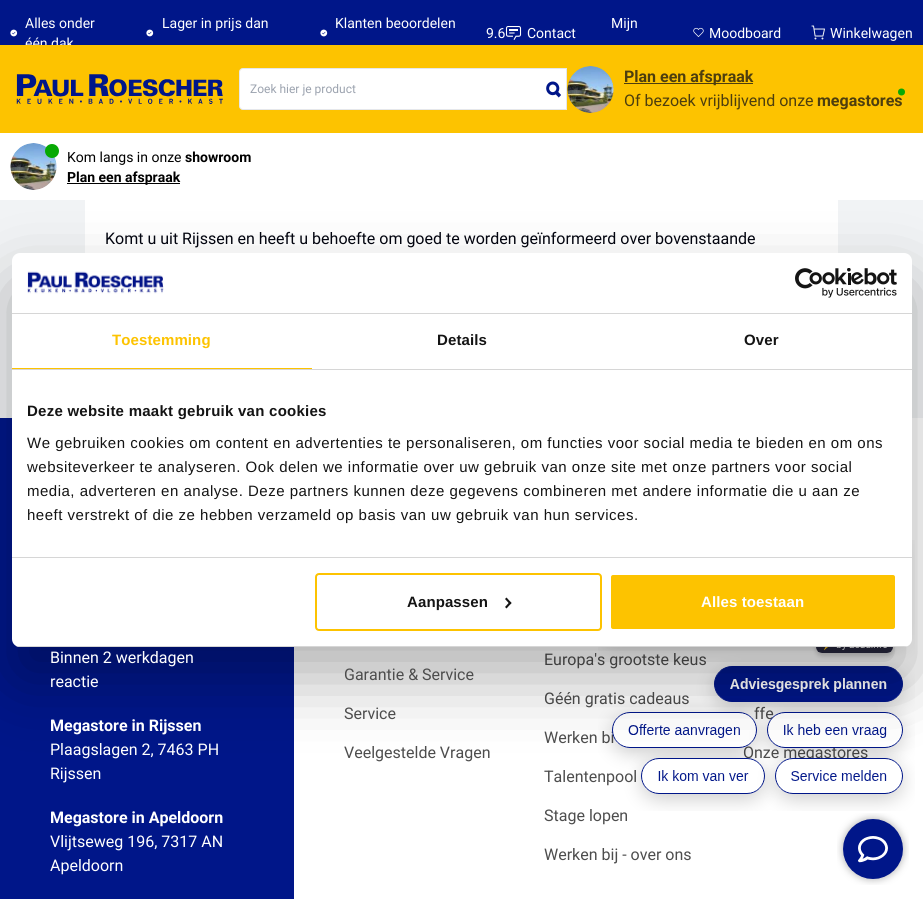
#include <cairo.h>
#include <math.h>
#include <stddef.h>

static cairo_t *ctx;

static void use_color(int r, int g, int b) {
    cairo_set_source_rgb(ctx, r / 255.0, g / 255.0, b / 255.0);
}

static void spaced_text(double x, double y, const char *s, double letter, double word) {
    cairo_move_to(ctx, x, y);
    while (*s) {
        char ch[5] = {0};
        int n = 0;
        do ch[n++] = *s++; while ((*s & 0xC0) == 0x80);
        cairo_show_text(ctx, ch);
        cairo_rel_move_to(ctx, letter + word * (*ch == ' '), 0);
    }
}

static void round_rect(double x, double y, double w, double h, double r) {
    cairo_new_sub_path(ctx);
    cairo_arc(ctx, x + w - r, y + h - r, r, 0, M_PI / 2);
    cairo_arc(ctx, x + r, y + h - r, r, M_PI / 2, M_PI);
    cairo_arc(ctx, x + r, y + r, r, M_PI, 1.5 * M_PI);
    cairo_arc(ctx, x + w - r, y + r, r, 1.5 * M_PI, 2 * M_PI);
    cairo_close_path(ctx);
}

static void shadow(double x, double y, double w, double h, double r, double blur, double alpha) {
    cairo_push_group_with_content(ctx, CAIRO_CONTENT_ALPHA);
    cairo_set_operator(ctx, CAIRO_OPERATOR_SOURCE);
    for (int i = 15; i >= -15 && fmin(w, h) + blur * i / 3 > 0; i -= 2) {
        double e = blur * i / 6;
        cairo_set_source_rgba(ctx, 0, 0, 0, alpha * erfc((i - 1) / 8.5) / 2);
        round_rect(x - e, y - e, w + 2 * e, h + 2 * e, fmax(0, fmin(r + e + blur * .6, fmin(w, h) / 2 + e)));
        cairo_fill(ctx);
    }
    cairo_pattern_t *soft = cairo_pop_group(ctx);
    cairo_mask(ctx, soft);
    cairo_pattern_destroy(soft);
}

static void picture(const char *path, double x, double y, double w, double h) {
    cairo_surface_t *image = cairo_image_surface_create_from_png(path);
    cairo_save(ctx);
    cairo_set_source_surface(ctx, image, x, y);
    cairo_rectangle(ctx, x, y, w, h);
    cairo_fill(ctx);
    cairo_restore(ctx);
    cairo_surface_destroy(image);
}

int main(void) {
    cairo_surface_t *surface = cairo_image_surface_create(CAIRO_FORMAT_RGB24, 923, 899);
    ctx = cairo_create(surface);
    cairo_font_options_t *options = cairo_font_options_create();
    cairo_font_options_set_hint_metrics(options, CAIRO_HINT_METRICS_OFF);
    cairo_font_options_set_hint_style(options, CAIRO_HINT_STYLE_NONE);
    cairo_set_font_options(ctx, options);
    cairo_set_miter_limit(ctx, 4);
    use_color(255, 255, 255);
    cairo_paint(ctx);
    use_color(0, 22, 137);
    cairo_rectangle(ctx, 0, 0, 923, 45);
    cairo_fill(ctx);
    picture("img1.png", 10, 29, 8, 8);
    cairo_select_font_face(ctx, "Roboto", CAIRO_FONT_SLANT_NORMAL, CAIRO_FONT_WEIGHT_NORMAL);
    cairo_set_font_size(ctx, 14);
    use_color(255, 255, 255);
    cairo_move_to(ctx, 25, 28);
    cairo_show_text(ctx, "Alles onder");
    cairo_move_to(ctx, 25, 48);
    cairo_show_text(ctx, "één dak");
    cairo_move_to(ctx, 162, 28);
    cairo_show_text(ctx, "Lager in prijs dan");
    picture("img2.png", 146, 29, 8, 8);
    picture("img3.png", 320, 29, 8, 8);
    cairo_move_to(ctx, 335, 28);
    cairo_show_text(ctx, "Klanten beoordelen");
    cairo_move_to(ctx, 486, 38);
    cairo_show_text(ctx, "9.6");
    cairo_move_to(ctx, 611, 28);
    cairo_show_text(ctx, "Mijn");
    picture("img4.png", 505, 26, 17, 14);
    cairo_move_to(ctx, 527, 38);
    cairo_show_text(ctx, "Contact");
    picture("img5.png", 693, 27, 11, 10);
    cairo_move_to(ctx, 709, 38);
    cairo_show_text(ctx, "Moodboard");
    picture("img6.png", 811, 25, 14, 15);
    cairo_move_to(ctx, 830, 38);
    cairo_show_text(ctx, "Winkelwagen");
    use_color(253, 195, 0);
    cairo_rectangle(ctx, 0, 45, 923, 88);
    cairo_fill(ctx);
    picture("img7.png", 16, 74, 207, 30);
    use_color(255, 255, 255);
    cairo_new_path(ctx);
    cairo_move_to(ctx, 243, 68.5);
    cairo_line_to(ctx, 566.5, 68.5);
    cairo_line_to(ctx, 566.5, 109.5);
    cairo_line_to(ctx, 243, 109.5);
    cairo_curve_to(ctx, 241, 109.5, 239.5, 108, 239.5, 106);
    cairo_line_to(ctx, 239.5, 72);
    cairo_curve_to(ctx, 239.5, 70, 241, 68.5, 243, 68.5);
    cairo_close_path(ctx);
    cairo_fill_preserve(ctx);
    use_color(229, 231, 235);
    cairo_set_line_width(ctx, 1);
    cairo_stroke(ctx);
    cairo_set_font_size(ctx, 12);
    use_color(156, 163, 175);
    cairo_move_to(ctx, 250, 93);
    cairo_show_text(ctx, "Zoek hier je product");
    picture("img8.png", 546, 81, 15, 17);
    picture("img9.png", 567, 66, 47, 47);
    use_color(77, 62, 14);
    cairo_rectangle(ctx, 624, 83, 129, 1);
    cairo_fill(ctx);
    cairo_select_font_face(ctx, "Roboto", CAIRO_FONT_SLANT_NORMAL, CAIRO_FONT_WEIGHT_BOLD);
    cairo_set_font_size(ctx, 16);
    cairo_move_to(ctx, 624, 82);
    cairo_show_text(ctx, "Plan een afspraak");
    cairo_select_font_face(ctx, "Roboto", CAIRO_FONT_SLANT_NORMAL, CAIRO_FONT_WEIGHT_NORMAL);
    cairo_move_to(ctx, 624, 106);
    cairo_show_text(ctx, "Of bezoek vrijblijvend onze");
    cairo_select_font_face(ctx, "Roboto", CAIRO_FONT_SLANT_NORMAL, CAIRO_FONT_WEIGHT_BOLD);
    cairo_move_to(ctx, 817, 106);
    cairo_show_text(ctx, "megastores");
    use_color(7, 169, 4);
    cairo_new_path(ctx);
    cairo_arc(ctx, 901.5, 92, 3.5, 0, 2 * M_PI);
    cairo_fill(ctx);
    picture("img10.png", 10, 143, 47, 47);
    cairo_arc(ctx, 52, 151, 7, 0, 2 * M_PI);
    cairo_fill(ctx);
    cairo_select_font_face(ctx, "Roboto", CAIRO_FONT_SLANT_NORMAL, CAIRO_FONT_WEIGHT_NORMAL);
    cairo_set_font_size(ctx, 14);
    use_color(0, 0, 0);
    cairo_move_to(ctx, 67, 162);
    cairo_show_text(ctx, "Kom langs in onze");
    cairo_select_font_face(ctx, "Roboto", CAIRO_FONT_SLANT_NORMAL, CAIRO_FONT_WEIGHT_BOLD);
    cairo_move_to(ctx, 185, 162);
    cairo_show_text(ctx, "showroom");
    cairo_rectangle(ctx, 67, 183, 113, 1);
    cairo_fill(ctx);
    cairo_move_to(ctx, 67, 182);
    cairo_show_text(ctx, "Plan een afspraak");
    use_color(241, 243, 245);
    cairo_rectangle(ctx, 0, 200, 923, 218);
    cairo_fill(ctx);
    use_color(255, 255, 255);
    cairo_rectangle(ctx, 85, 200, 753, 53);
    cairo_fill(ctx);
    cairo_select_font_face(ctx, "Roboto", CAIRO_FONT_SLANT_NORMAL, CAIRO_FONT_WEIGHT_NORMAL);
    cairo_set_font_size(ctx, 16);
    use_color(2, 4, 15);
    cairo_move_to(ctx, 105, 244);
    cairo_show_text(ctx, "Komt u uit Rijssen en heeft u behoefte om goed te worden geïnformeerd over bovenstaande");
    use_color(77, 77, 77);
    cairo_move_to(ctx, 544, 665);
    cairo_show_text(ctx, "Europa's grootste keus");
    cairo_move_to(ctx, 544, 704);
    cairo_show_text(ctx, "Géén gratis cadeaus");
    cairo_move_to(ctx, 544, 743);
    cairo_show_text(ctx, "Werken bi");
    cairo_move_to(ctx, 544, 782);
    cairo_show_text(ctx, "Talentenpool");
    cairo_move_to(ctx, 544, 821);
    cairo_show_text(ctx, "Stage lopen");
    cairo_move_to(ctx, 754, 719);
    cairo_show_text(ctx, "ffe");
    cairo_move_to(ctx, 743, 758);
    cairo_show_text(ctx, "Onze megastores");
    picture("img13.png", 598, 540, 317, 271);
    use_color(0, 22, 137);
    cairo_rectangle(ctx, 0, 418, 294, 481);
    cairo_fill(ctx);
    use_color(0, 0, 0);
    shadow(12, 285, 900, 394, 8, 34, 0.3);
    use_color(255, 255, 255);
    round_rect(12, 253, 900, 394, 8);
    cairo_fill(ctx);
    use_color(214, 214, 214);
    cairo_rectangle(ctx, 12, 313, 900, 1);
    cairo_fill(ctx);
    picture("img11.png", 27, 271, 137, 23);
    picture("img12.png", 795, 268, 102, 30);
    cairo_rectangle(ctx, 12, 369, 900, 1);
    cairo_fill(ctx);
    use_color(253, 195, 0);
    cairo_rectangle(ctx, 12, 368, 300, 1);
    cairo_fill(ctx);
    cairo_select_font_face(ctx, "Liberation Sans", CAIRO_FONT_SLANT_NORMAL, CAIRO_FONT_WEIGHT_BOLD);
    cairo_set_font_size(ctx, 15);
    spaced_text(112, 345, "Toestemming", 0.1, 0);
    use_color(20, 20, 20);
    spaced_text(437, 345, "Details", 0.1, 0);
    spaced_text(744, 345, "Over", 0.1, 0);
    use_color(214, 214, 214);
    cairo_rectangle(ctx, 12, 557, 900, 1);
    cairo_fill(ctx);
    use_color(20, 20, 20);
    spaced_text(27, 416, "Deze website maakt gebruik van cookies", 0.25, 0);
    cairo_select_font_face(ctx, "Liberation Sans", CAIRO_FONT_SLANT_NORMAL, CAIRO_FONT_WEIGHT_NORMAL);
    spaced_text(27, 448, "We gebruiken cookies om content en advertenties te personaliseren, om functies voor social media te bieden en om ons", 0.5, 0);
    spaced_text(27, 472, "websiteverkeer te analyseren. Ook delen we informatie over uw gebruik van onze site met onze partners voor social", 0.5, 0);
    spaced_text(27, 496, "media, adverteren en analyse. Deze partners kunnen deze gegevens combineren met andere informatie die u aan ze", 0.5, 0);
    spaced_text(27, 520, "heeft verstrekt of die ze hebben verzameld op basis van uw gebruik van hun services.", 0.5, 0);
    cairo_save(ctx);
    round_rect(12, 253, 900, 394, 8);
    cairo_clip(ctx);
    use_color(214, 214, 214);
    cairo_rectangle(ctx, 12, 646, 900, 1);
    cairo_fill(ctx);
    cairo_restore(ctx);
    round_rect(316, 574, 285, 56, 3);
    use_color(253, 195, 0);
    cairo_set_line_width(ctx, 2);
    cairo_stroke(ctx);
    cairo_select_font_face(ctx, "Liberation Sans", CAIRO_FONT_SLANT_NORMAL, CAIRO_FONT_WEIGHT_BOLD);
    use_color(20, 20, 20);
    spaced_text(407, 607, "Aanpassen", 0.1, 0);
    cairo_new_path(ctx);
    cairo_move_to(ctx, 506.5, 597.5);
    cairo_line_to(ctx, 511.5, 603);
    cairo_line_to(ctx, 510, 604.5);
    cairo_line_to(ctx, 505, 599);
    cairo_close_path(ctx);
    cairo_fill(ctx);
    cairo_new_path(ctx);
    cairo_move_to(ctx, 510, 601.5);
    cairo_line_to(ctx, 511.5, 603);
    cairo_line_to(ctx, 506.5, 608.5);
    cairo_line_to(ctx, 505, 607);
    cairo_close_path(ctx);
    cairo_fill(ctx);
    use_color(253, 195, 0);
    round_rect(610, 574, 286, 56, 3);
    cairo_fill_preserve(ctx);
    use_color(255, 255, 255);
    cairo_stroke(ctx);
    spaced_text(701, 607, "Alles toestaan", 0.1, 0);
    picture("img14.png", 837, 813, 72, 72);
    cairo_select_font_face(ctx, "Roboto", CAIRO_FONT_SLANT_NORMAL, CAIRO_FONT_WEIGHT_NORMAL);
    cairo_set_font_size(ctx, 16);
    cairo_move_to(ctx, 50, 663);
    cairo_show_text(ctx, "Binnen 2 werkdagen");
    cairo_move_to(ctx, 50, 687);
    cairo_show_text(ctx, "reactie");
    cairo_select_font_face(ctx, "Roboto", CAIRO_FONT_SLANT_NORMAL, CAIRO_FONT_WEIGHT_BOLD);
    cairo_move_to(ctx, 50, 731);
    cairo_show_text(ctx, "Megastore in Rijssen");
    cairo_select_font_face(ctx, "Roboto", CAIRO_FONT_SLANT_NORMAL, CAIRO_FONT_WEIGHT_NORMAL);
    cairo_move_to(ctx, 50, 755);
    cairo_show_text(ctx, "Plaagslagen 2, 7463 PH");
    cairo_move_to(ctx, 50, 779);
    cairo_show_text(ctx, "Rijssen");
    cairo_select_font_face(ctx, "Roboto", CAIRO_FONT_SLANT_NORMAL, CAIRO_FONT_WEIGHT_BOLD);
    cairo_move_to(ctx, 50, 823);
    cairo_show_text(ctx, "Megastore in Apeldoorn");
    cairo_select_font_face(ctx, "Roboto", CAIRO_FONT_SLANT_NORMAL, CAIRO_FONT_WEIGHT_NORMAL);
    cairo_move_to(ctx, 50, 847);
    cairo_show_text(ctx, "Vlijtseweg 196, 7317 AN");
    cairo_move_to(ctx, 50, 871);
    cairo_show_text(ctx, "Apeldoorn");
    use_color(77, 77, 77);
    cairo_move_to(ctx, 344, 680);
    cairo_show_text(ctx, "Garantie & Service");
    cairo_move_to(ctx, 344, 719);
    cairo_show_text(ctx, "Service");
    cairo_move_to(ctx, 344, 758);
    cairo_show_text(ctx, "Veelgestelde Vragen");
    cairo_move_to(ctx, 544, 860);
    cairo_show_text(ctx, "Werken bij - over ons");
    cairo_surface_write_to_png(surface, "result.png");
    cairo_font_options_destroy(options);
    cairo_destroy(ctx);
    cairo_surface_destroy(surface);
    return 0;
}
